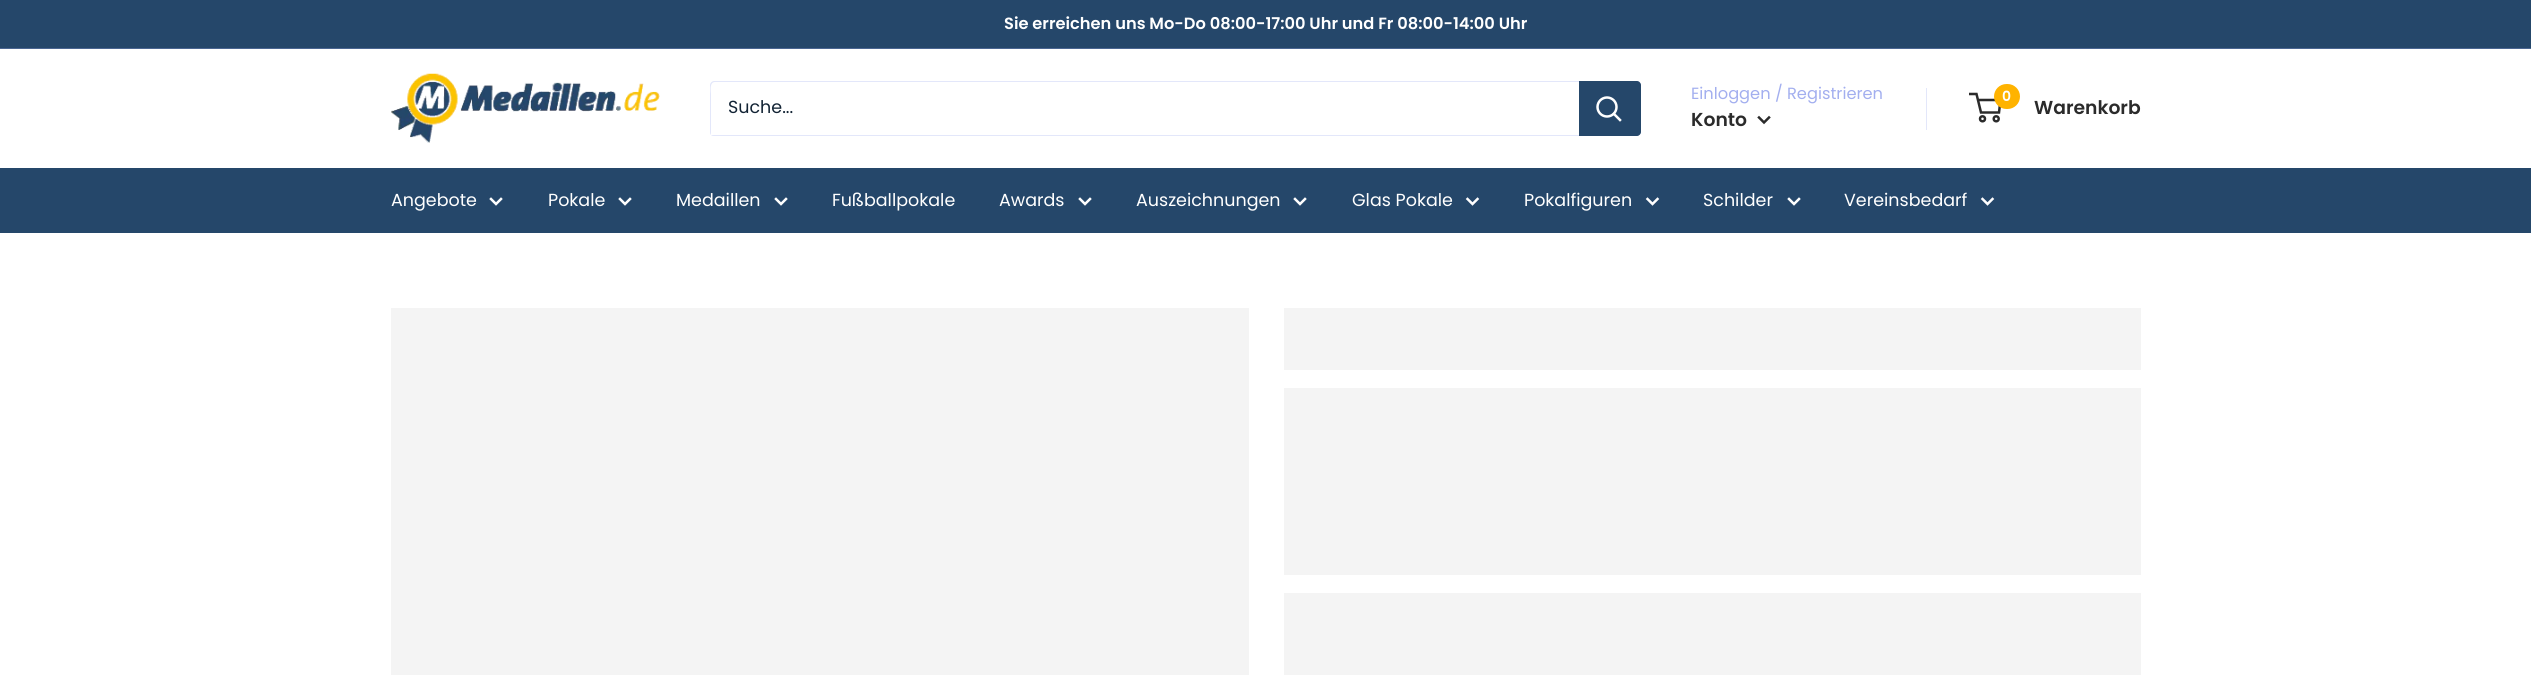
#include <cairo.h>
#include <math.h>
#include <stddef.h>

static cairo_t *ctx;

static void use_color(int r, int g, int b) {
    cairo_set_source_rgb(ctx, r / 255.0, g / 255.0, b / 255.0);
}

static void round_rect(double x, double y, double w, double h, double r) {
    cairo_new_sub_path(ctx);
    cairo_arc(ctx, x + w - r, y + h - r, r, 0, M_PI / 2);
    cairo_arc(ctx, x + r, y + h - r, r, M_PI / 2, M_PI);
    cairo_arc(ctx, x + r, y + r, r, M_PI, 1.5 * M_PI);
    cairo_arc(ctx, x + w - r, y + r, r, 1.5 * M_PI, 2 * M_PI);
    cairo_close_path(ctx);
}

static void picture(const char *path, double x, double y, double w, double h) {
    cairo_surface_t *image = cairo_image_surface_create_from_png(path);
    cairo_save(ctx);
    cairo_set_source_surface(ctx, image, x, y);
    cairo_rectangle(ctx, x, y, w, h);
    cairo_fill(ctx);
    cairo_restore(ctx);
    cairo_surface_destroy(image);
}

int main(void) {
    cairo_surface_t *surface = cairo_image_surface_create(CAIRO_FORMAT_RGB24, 2531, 675);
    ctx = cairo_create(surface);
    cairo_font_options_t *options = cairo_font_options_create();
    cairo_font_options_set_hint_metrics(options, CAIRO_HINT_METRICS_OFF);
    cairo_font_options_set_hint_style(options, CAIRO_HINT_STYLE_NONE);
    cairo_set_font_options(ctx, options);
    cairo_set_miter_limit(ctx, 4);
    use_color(255, 255, 255);
    cairo_paint(ctx);
    use_color(37, 71, 106);
    cairo_rectangle(ctx, 0, 0, 2531, 48);
    cairo_fill(ctx);
    use_color(75, 102, 146);
    cairo_rectangle(ctx, 0, 48, 2531, 1);
    cairo_fill(ctx);
    cairo_select_font_face(ctx, "Poppins SemiBold", CAIRO_FONT_SLANT_NORMAL, CAIRO_FONT_WEIGHT_NORMAL);
    cairo_set_font_size(ctx, 16.25);
    use_color(255, 255, 255);
    cairo_move_to(ctx, 1004, 29);
    cairo_show_text(ctx, "Sie erreichen uns Mo-Do 08:00-17:00 Uhr und Fr 08:00-14:00 Uhr");
    picture("img1.png", 391, 73, 269, 70);
    use_color(227, 231, 250);
    cairo_new_path(ctx);
    cairo_move_to(ctx, 711, 135);
    cairo_curve_to(ctx, 712, 136, 713, 136, 714, 136);
    cairo_line_to(ctx, 1637, 136);
    cairo_curve_to(ctx, 1639, 136, 1641, 134, 1641, 132);
    cairo_line_to(ctx, 1641, 85);
    cairo_curve_to(ctx, 1641, 84, 1640, 82, 1639, 82);
    cairo_line_to(ctx, 1640, 84);
    cairo_line_to(ctx, 1640, 131);
    cairo_curve_to(ctx, 1640, 133, 1638, 135, 1636, 135);
    cairo_close_path(ctx);
    cairo_fill(ctx);
    cairo_new_path(ctx);
    cairo_move_to(ctx, 715, 82);
    cairo_line_to(ctx, 1640, 82);
    cairo_curve_to(ctx, 1639, 81, 1638, 81, 1637, 81);
    cairo_line_to(ctx, 714, 81);
    cairo_curve_to(ctx, 712, 81, 710, 83, 710, 85);
    cairo_line_to(ctx, 710, 132);
    cairo_curve_to(ctx, 710, 133, 710, 134, 711, 135);
    cairo_line_to(ctx, 711, 94);
    cairo_curve_to(ctx, 711, 92, 709, 82, 715, 82);
    cairo_close_path(ctx);
    cairo_fill(ctx);
    cairo_select_font_face(ctx, "Poppins", CAIRO_FONT_SLANT_NORMAL, CAIRO_FONT_WEIGHT_NORMAL);
    cairo_set_font_size(ctx, 17.5);
    use_color(18, 35, 52);
    cairo_move_to(ctx, 728, 113);
    cairo_show_text(ctx, "Suche...");
    use_color(37, 71, 106);
    cairo_new_path(ctx);
    cairo_move_to(ctx, 1579, 81);
    cairo_line_to(ctx, 1637, 81);
    cairo_curve_to(ctx, 1639, 81, 1641, 83, 1641, 85);
    cairo_line_to(ctx, 1641, 132);
    cairo_curve_to(ctx, 1641, 134, 1639, 136, 1637, 136);
    cairo_line_to(ctx, 1579, 136);
    cairo_close_path(ctx);
    cairo_fill(ctx);
    cairo_new_path(ctx);
    cairo_move_to(ctx, 1620, 120);
    cairo_line_to(ctx, 1614, 114);
    use_color(255, 255, 255);
    cairo_set_line_width(ctx, 2.5);
    cairo_set_line_cap(ctx, CAIRO_LINE_CAP_SQUARE);
    cairo_stroke(ctx);
    cairo_arc(ctx, 1607, 107, 9.5, 0, 2 * M_PI);
    cairo_set_line_cap(ctx, CAIRO_LINE_CAP_BUTT);
    cairo_stroke(ctx);
    cairo_set_font_size(ctx, 16.25);
    use_color(163, 175, 239);
    cairo_move_to(ctx, 1691, 99);
    cairo_show_text(ctx, "Einloggen / Registrieren");
    use_color(227, 231, 250);
    cairo_rectangle(ctx, 1926, 88, 1, 42);
    cairo_fill(ctx);
    cairo_select_font_face(ctx, "Poppins SemiBold", CAIRO_FONT_SLANT_NORMAL, CAIRO_FONT_WEIGHT_NORMAL);
    cairo_set_font_size(ctx, 18.75);
    use_color(43, 43, 43);
    cairo_move_to(ctx, 1691, 126);
    cairo_show_text(ctx, "Konto");
    cairo_new_path(ctx);
    cairo_move_to(ctx, 1769, 117.5);
    cairo_line_to(ctx, 1764, 122.5);
    cairo_line_to(ctx, 1759, 117.5);
    cairo_set_line_cap(ctx, CAIRO_LINE_CAP_SQUARE);
    cairo_stroke(ctx);
    cairo_arc(ctx, 1982.5, 118.8, 2.5, 0, 2 * M_PI);
    cairo_set_line_cap(ctx, CAIRO_LINE_CAP_BUTT);
    cairo_stroke(ctx);
    cairo_arc(ctx, 1996.2, 118.8, 2.5, 0, 2 * M_PI);
    cairo_stroke(ctx);
    cairo_new_path(ctx);
    cairo_move_to(ctx, 1978, 100);
    cairo_line_to(ctx, 2000.5, 100);
    cairo_line_to(ctx, 1999, 112.5);
    cairo_line_to(ctx, 1981, 112.5);
    cairo_line_to(ctx, 1976.5, 94);
    cairo_line_to(ctx, 1969, 94);
    cairo_stroke(ctx);
    use_color(255, 179, 0);
    round_rect(1994, 84, 26, 25, 12.5);
    cairo_fill(ctx);
    cairo_set_font_size(ctx, 14);
    use_color(255, 255, 255);
    cairo_move_to(ctx, 2002, 101);
    cairo_show_text(ctx, "0");
    cairo_set_font_size(ctx, 18.75);
    use_color(43, 43, 43);
    cairo_move_to(ctx, 2034, 114);
    cairo_show_text(ctx, "Warenkorb");
    use_color(37, 71, 106);
    cairo_rectangle(ctx, 0, 168, 2531, 65);
    cairo_fill(ctx);
    cairo_select_font_face(ctx, "Poppins", CAIRO_FONT_SLANT_NORMAL, CAIRO_FONT_WEIGHT_NORMAL);
    cairo_set_font_size(ctx, 17.5);
    use_color(255, 255, 255);
    cairo_move_to(ctx, 391, 206);
    cairo_show_text(ctx, "Angebote");
    cairo_new_path(ctx);
    cairo_move_to(ctx, 501, 199);
    cairo_line_to(ctx, 496, 204);
    cairo_line_to(ctx, 491, 199);
    cairo_set_line_cap(ctx, CAIRO_LINE_CAP_SQUARE);
    cairo_stroke(ctx);
    cairo_move_to(ctx, 548, 206);
    cairo_show_text(ctx, "Pokale");
    cairo_new_path(ctx);
    cairo_move_to(ctx, 630, 199);
    cairo_line_to(ctx, 625, 204);
    cairo_line_to(ctx, 620, 199);
    cairo_stroke(ctx);
    cairo_move_to(ctx, 676, 206);
    cairo_show_text(ctx, "Medaillen");
    cairo_new_path(ctx);
    cairo_move_to(ctx, 786, 199);
    cairo_line_to(ctx, 781, 204);
    cairo_line_to(ctx, 776, 199);
    cairo_stroke(ctx);
    cairo_move_to(ctx, 832, 206);
    cairo_show_text(ctx, "Fußballpokale");
    cairo_move_to(ctx, 999, 206);
    cairo_show_text(ctx, "Awards");
    cairo_new_path(ctx);
    cairo_move_to(ctx, 1090, 199);
    cairo_line_to(ctx, 1085, 204);
    cairo_line_to(ctx, 1080, 199);
    cairo_stroke(ctx);
    cairo_move_to(ctx, 1136, 206);
    cairo_show_text(ctx, "Auszeichnungen");
    cairo_new_path(ctx);
    cairo_move_to(ctx, 1305, 199);
    cairo_line_to(ctx, 1300, 204);
    cairo_line_to(ctx, 1295, 199);
    cairo_stroke(ctx);
    cairo_move_to(ctx, 1352, 206);
    cairo_show_text(ctx, "Glas Pokale");
    cairo_new_path(ctx);
    cairo_move_to(ctx, 1477.5, 199);
    cairo_line_to(ctx, 1472.5, 204);
    cairo_line_to(ctx, 1467.5, 199);
    cairo_stroke(ctx);
    cairo_move_to(ctx, 1524, 206);
    cairo_show_text(ctx, "Pokalfiguren");
    cairo_new_path(ctx);
    cairo_move_to(ctx, 1657.5, 199);
    cairo_line_to(ctx, 1652.5, 204);
    cairo_line_to(ctx, 1647.5, 199);
    cairo_stroke(ctx);
    cairo_move_to(ctx, 1703, 206);
    cairo_show_text(ctx, "Schilder");
    cairo_new_path(ctx);
    cairo_move_to(ctx, 1799, 199);
    cairo_line_to(ctx, 1794, 204);
    cairo_line_to(ctx, 1789, 199);
    cairo_stroke(ctx);
    cairo_move_to(ctx, 1844, 206);
    cairo_show_text(ctx, "Vereinsbedarf");
    cairo_new_path(ctx);
    cairo_move_to(ctx, 1992.5, 199);
    cairo_line_to(ctx, 1987.5, 204);
    cairo_line_to(ctx, 1982.5, 199);
    cairo_stroke(ctx);
    use_color(244, 244, 244);
    cairo_rectangle(ctx, 391, 308, 858, 367);
    cairo_fill(ctx);
    cairo_rectangle(ctx, 1284, 308, 857, 62);
    cairo_fill(ctx);
    cairo_rectangle(ctx, 1284, 388, 857, 187);
    cairo_fill(ctx);
    cairo_rectangle(ctx, 1284, 593, 857, 82);
    cairo_fill(ctx);
    cairo_surface_write_to_png(surface, "result.png");
    cairo_font_options_destroy(options);
    cairo_destroy(ctx);
    cairo_surface_destroy(surface);
    return 0;
}
